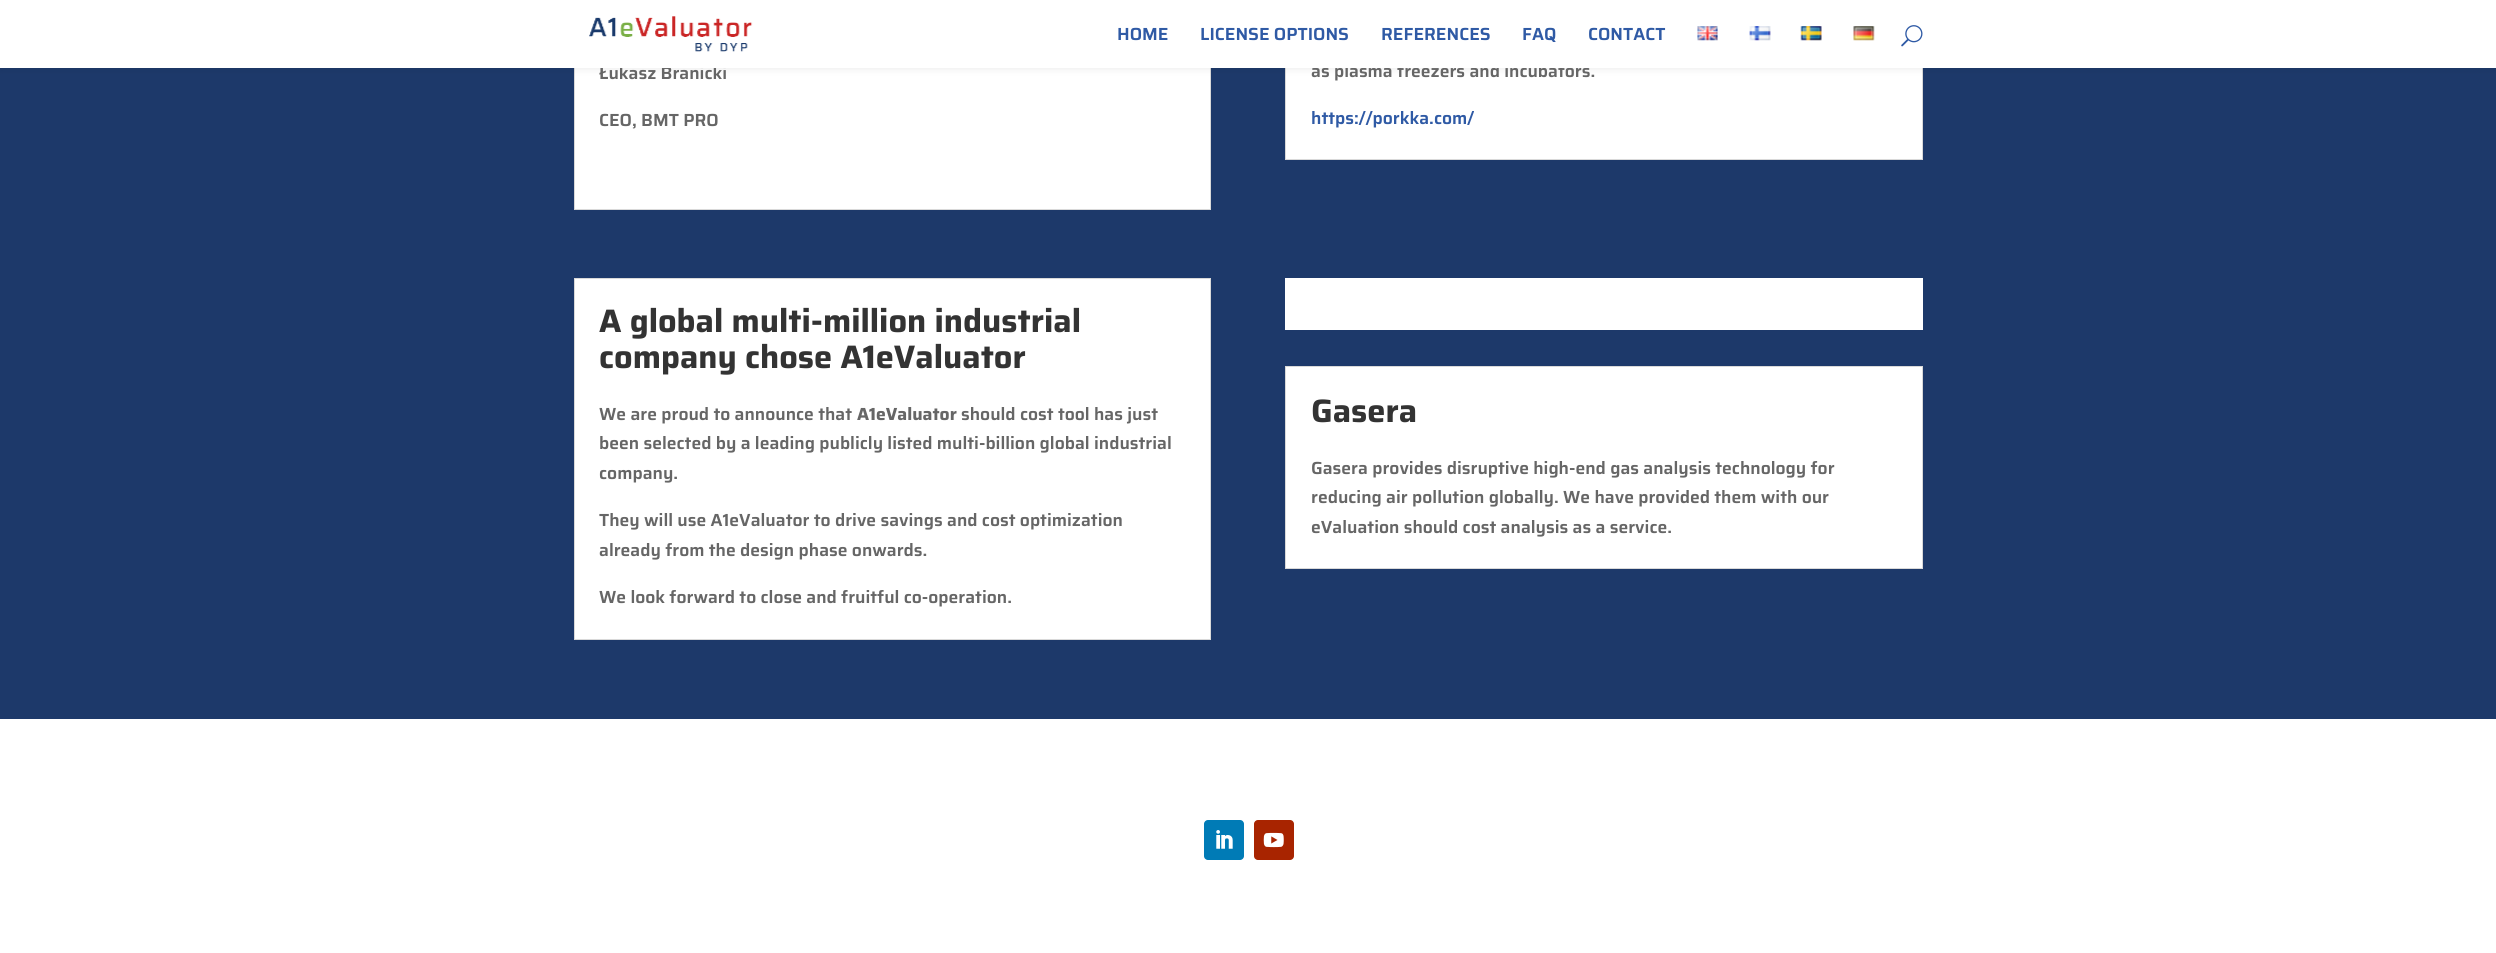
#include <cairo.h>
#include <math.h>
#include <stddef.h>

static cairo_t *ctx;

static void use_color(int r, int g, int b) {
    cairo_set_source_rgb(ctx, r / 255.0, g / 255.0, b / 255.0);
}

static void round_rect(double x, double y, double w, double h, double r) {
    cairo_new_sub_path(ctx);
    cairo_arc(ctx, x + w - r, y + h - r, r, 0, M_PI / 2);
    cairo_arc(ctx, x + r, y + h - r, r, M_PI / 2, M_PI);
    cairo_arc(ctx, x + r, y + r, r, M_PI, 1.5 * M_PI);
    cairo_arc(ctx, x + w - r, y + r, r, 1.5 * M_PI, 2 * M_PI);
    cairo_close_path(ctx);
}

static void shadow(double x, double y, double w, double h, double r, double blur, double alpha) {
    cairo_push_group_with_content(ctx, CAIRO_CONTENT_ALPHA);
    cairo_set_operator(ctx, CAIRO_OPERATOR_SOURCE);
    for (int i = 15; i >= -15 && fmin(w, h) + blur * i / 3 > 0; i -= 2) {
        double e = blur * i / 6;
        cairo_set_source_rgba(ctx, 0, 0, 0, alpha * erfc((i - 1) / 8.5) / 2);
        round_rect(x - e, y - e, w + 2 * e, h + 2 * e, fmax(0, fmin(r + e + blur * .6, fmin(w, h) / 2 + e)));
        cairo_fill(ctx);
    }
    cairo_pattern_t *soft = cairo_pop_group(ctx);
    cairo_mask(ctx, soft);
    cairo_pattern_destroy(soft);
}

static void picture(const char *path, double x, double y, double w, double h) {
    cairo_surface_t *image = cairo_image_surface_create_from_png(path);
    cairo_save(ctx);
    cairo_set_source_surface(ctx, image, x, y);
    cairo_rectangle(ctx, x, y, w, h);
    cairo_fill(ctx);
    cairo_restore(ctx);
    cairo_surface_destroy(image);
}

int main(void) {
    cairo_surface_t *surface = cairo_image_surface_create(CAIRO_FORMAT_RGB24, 2496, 953);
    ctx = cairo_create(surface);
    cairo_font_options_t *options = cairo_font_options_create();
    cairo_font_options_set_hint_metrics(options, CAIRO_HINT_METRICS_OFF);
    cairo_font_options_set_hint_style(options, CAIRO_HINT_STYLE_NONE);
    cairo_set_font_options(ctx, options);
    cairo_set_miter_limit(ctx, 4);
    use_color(29, 57, 106);
    cairo_paint(ctx);
    use_color(255, 255, 255);
    cairo_rectangle(ctx, 575, 68, 635, 141);
    cairo_fill(ctx);
    cairo_rectangle(ctx, 574.5, -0.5, 636, 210);
    use_color(217, 217, 217);
    cairo_set_line_width(ctx, 1);
    cairo_stroke(ctx);
    use_color(255, 255, 255);
    cairo_rectangle(ctx, 1286, 68, 636, 91);
    cairo_fill(ctx);
    cairo_rectangle(ctx, 1285.5, -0.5, 637, 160);
    use_color(217, 217, 217);
    cairo_stroke(ctx);
    use_color(0, 0, 0);
    shadow(0, 0, 2496, 68, 0, 4.5, 0.1);
    cairo_select_font_face(ctx, "Saira SemiBold", CAIRO_FONT_SLANT_NORMAL, CAIRO_FONT_WEIGHT_NORMAL);
    cairo_set_font_size(ctx, 17.5);
    use_color(102, 102, 102);
    cairo_move_to(ctx, 599, 79);
    cairo_show_text(ctx, "Łukasz Branicki");
    cairo_move_to(ctx, 1311, 77);
    cairo_show_text(ctx, "as plasma freezers and incubators.");
    use_color(255, 255, 255);
    cairo_rectangle(ctx, 0, 0, 2496, 68);
    cairo_fill(ctx);
    picture("img1.png", 589, 16, 164, 36);
    use_color(47, 90, 165);
    cairo_move_to(ctx, 1117, 40);
    cairo_show_text(ctx, "HOME");
    cairo_move_to(ctx, 1200, 40);
    cairo_show_text(ctx, "LICENSE OPTIONS");
    cairo_move_to(ctx, 1381, 40);
    cairo_show_text(ctx, "REFERENCES");
    cairo_move_to(ctx, 1522, 40);
    cairo_show_text(ctx, "FAQ");
    cairo_move_to(ctx, 1588, 40);
    cairo_show_text(ctx, "CONTACT");
    picture("img2.png", 1697, 26, 21, 15);
    picture("img3.png", 1749, 26, 22, 15);
    picture("img4.png", 1800, 26, 22, 15);
    picture("img5.png", 1853, 26, 22, 15);
    picture("img6.png", 1901, 25, 22, 22);
    use_color(102, 102, 102);
    cairo_move_to(ctx, 599, 126);
    cairo_show_text(ctx, "CEO, BMT PRO");
    use_color(47, 90, 165);
    cairo_move_to(ctx, 1311, 124);
    cairo_show_text(ctx, "https://porkka.com/");
    use_color(255, 255, 255);
    cairo_rectangle(ctx, 574.5, 278.5, 636, 361);
    cairo_fill_preserve(ctx);
    use_color(217, 217, 217);
    cairo_stroke(ctx);
    cairo_select_font_face(ctx, "Saira", CAIRO_FONT_SLANT_NORMAL, CAIRO_FONT_WEIGHT_BOLD);
    cairo_set_font_size(ctx, 32.5);
    use_color(51, 51, 51);
    cairo_move_to(ctx, 599, 332);
    cairo_show_text(ctx, "A global multi-million industrial");
    cairo_move_to(ctx, 599, 368);
    cairo_show_text(ctx, "company chose A1eValuator");
    cairo_select_font_face(ctx, "Saira SemiBold", CAIRO_FONT_SLANT_NORMAL, CAIRO_FONT_WEIGHT_NORMAL);
    cairo_set_font_size(ctx, 17.5);
    use_color(102, 102, 102);
    cairo_move_to(ctx, 599, 420);
    cairo_show_text(ctx, "We are proud to announce that");
    cairo_select_font_face(ctx, "Saira", CAIRO_FONT_SLANT_NORMAL, CAIRO_FONT_WEIGHT_BOLD);
    cairo_move_to(ctx, 857, 420);
    cairo_show_text(ctx, "A1eValuator");
    cairo_select_font_face(ctx, "Saira SemiBold", CAIRO_FONT_SLANT_NORMAL, CAIRO_FONT_WEIGHT_NORMAL);
    cairo_move_to(ctx, 961, 420);
    cairo_show_text(ctx, "should cost tool has just");
    cairo_move_to(ctx, 599, 449);
    cairo_show_text(ctx, "been selected by a leading publicly listed multi-billion global industrial");
    cairo_move_to(ctx, 599, 479);
    cairo_show_text(ctx, "company.");
    cairo_move_to(ctx, 599, 526);
    cairo_show_text(ctx, "They will use A1eValuator to drive savings and cost optimization");
    cairo_move_to(ctx, 599, 556);
    cairo_show_text(ctx, "already from the design phase onwards.");
    cairo_move_to(ctx, 599, 603);
    cairo_show_text(ctx, "We look forward to close and fruitful co-operation.");
    use_color(255, 255, 255);
    cairo_rectangle(ctx, 1285, 278, 638, 52);
    cairo_fill(ctx);
    cairo_rectangle(ctx, 1285.5, 366.5, 637, 202);
    cairo_fill_preserve(ctx);
    use_color(217, 217, 217);
    cairo_stroke(ctx);
    cairo_select_font_face(ctx, "Saira", CAIRO_FONT_SLANT_NORMAL, CAIRO_FONT_WEIGHT_BOLD);
    cairo_set_font_size(ctx, 32.5);
    use_color(51, 51, 51);
    cairo_move_to(ctx, 1311, 422);
    cairo_show_text(ctx, "Gasera");
    cairo_select_font_face(ctx, "Saira SemiBold", CAIRO_FONT_SLANT_NORMAL, CAIRO_FONT_WEIGHT_NORMAL);
    cairo_set_font_size(ctx, 17.5);
    use_color(102, 102, 102);
    cairo_move_to(ctx, 1311, 474);
    cairo_show_text(ctx, "Gasera provides disruptive high-end gas analysis technology for");
    cairo_move_to(ctx, 1311, 503);
    cairo_show_text(ctx, "reducing air pollution globally. We have provided them with our");
    cairo_move_to(ctx, 1311, 533);
    cairo_show_text(ctx, "eValuation should cost analysis as a service.");
    use_color(255, 255, 255);
    cairo_rectangle(ctx, 0, 719, 2496, 234);
    cairo_fill(ctx);
    use_color(0, 123, 182);
    round_rect(1204, 820, 40, 40, 4);
    cairo_fill(ctx);
    picture("img7.png", 1216, 830, 17, 19);
    use_color(168, 36, 0);
    round_rect(1254, 820, 40, 40, 4);
    cairo_fill(ctx);
    picture("img8.png", 1263, 832, 21, 16);
    cairo_surface_write_to_png(surface, "result.png");
    cairo_font_options_destroy(options);
    cairo_destroy(ctx);
    cairo_surface_destroy(surface);
    return 0;
}
